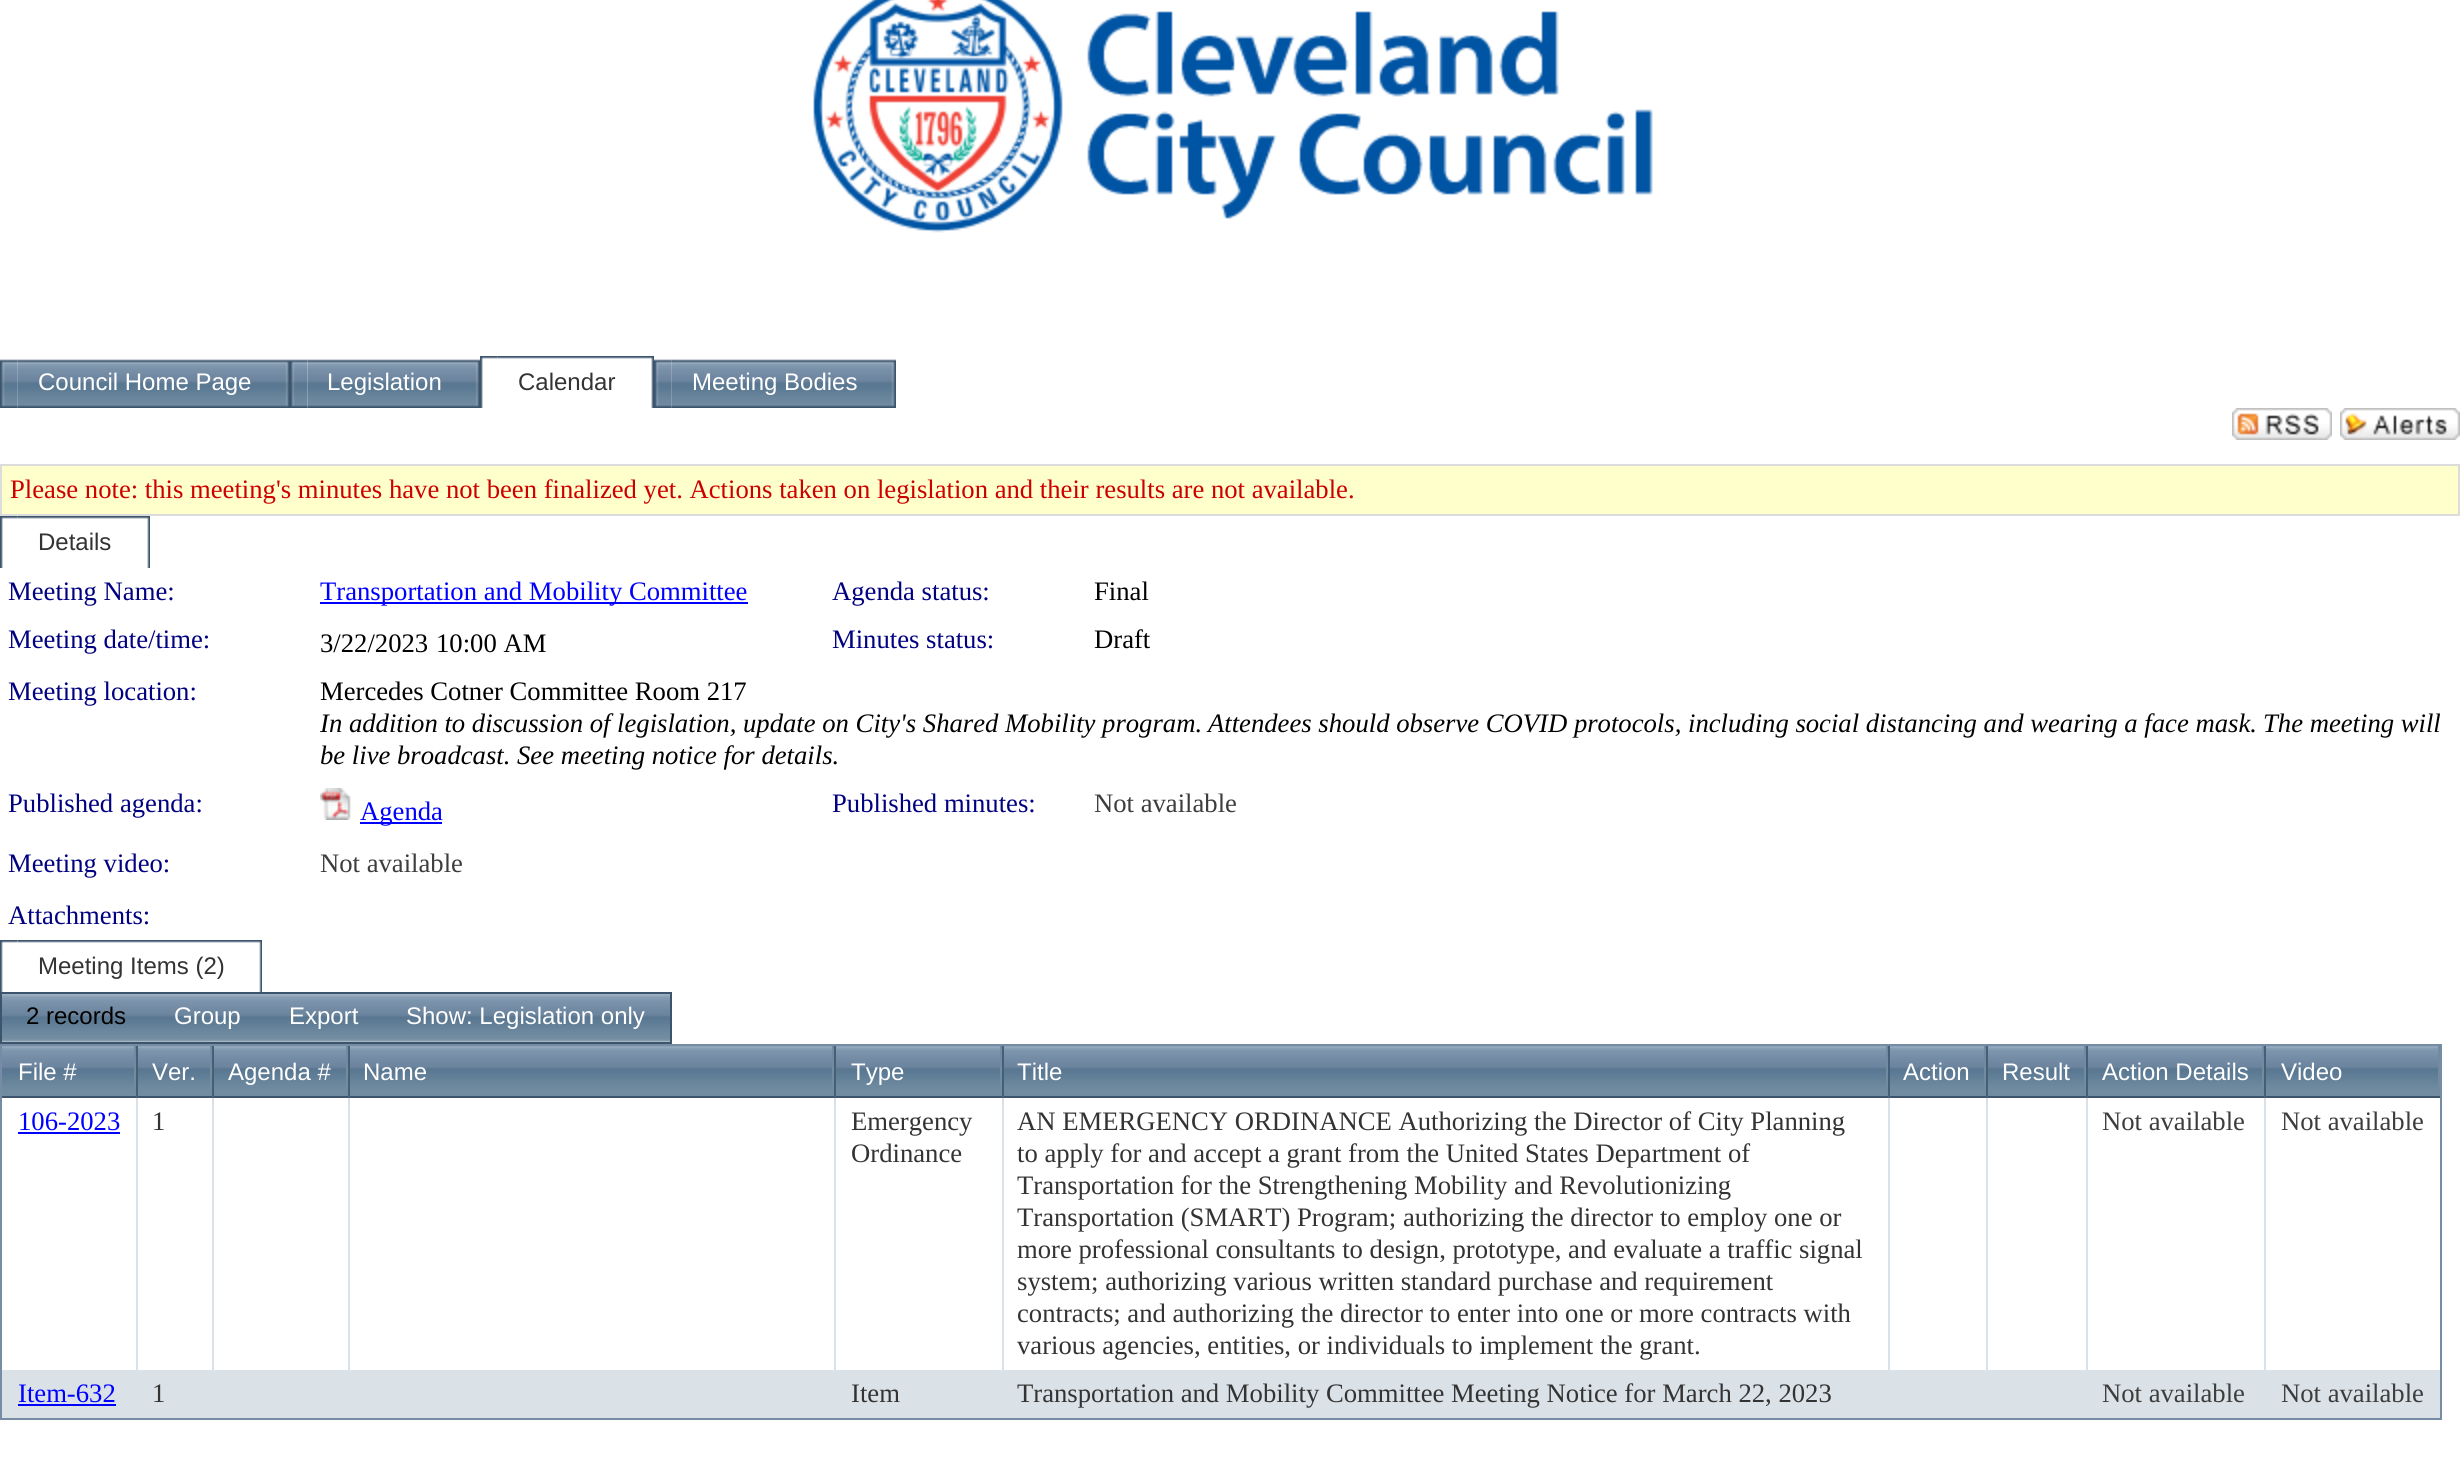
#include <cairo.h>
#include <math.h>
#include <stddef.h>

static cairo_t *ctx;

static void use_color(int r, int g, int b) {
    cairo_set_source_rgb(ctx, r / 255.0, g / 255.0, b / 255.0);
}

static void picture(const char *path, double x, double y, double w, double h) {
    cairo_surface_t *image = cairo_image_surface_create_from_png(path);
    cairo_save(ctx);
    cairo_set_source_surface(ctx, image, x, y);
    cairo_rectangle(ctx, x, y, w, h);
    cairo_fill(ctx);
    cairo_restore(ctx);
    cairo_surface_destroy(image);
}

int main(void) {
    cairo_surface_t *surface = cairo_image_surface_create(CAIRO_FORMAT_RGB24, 2460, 1480);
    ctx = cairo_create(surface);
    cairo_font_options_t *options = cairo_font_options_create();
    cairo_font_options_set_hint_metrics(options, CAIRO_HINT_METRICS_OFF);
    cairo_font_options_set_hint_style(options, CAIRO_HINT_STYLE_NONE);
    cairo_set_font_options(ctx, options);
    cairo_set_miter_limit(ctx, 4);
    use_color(255, 255, 255);
    cairo_paint(ctx);
    picture("img1.png", 813, 0, 840, 233);
    picture("img2.png", 0, 359, 19, 49);
    picture("img3.png", 18, 359, 272, 49);
    cairo_select_font_face(ctx, "Liberation Sans", CAIRO_FONT_SLANT_NORMAL, CAIRO_FONT_WEIGHT_NORMAL);
    cairo_set_font_size(ctx, 24);
    use_color(255, 255, 255);
    cairo_move_to(ctx, 38, 390);
    cairo_show_text(ctx, "Council Home Page");
    picture("img4.png", 290, 359, 19, 49);
    picture("img5.png", 308, 359, 172, 49);
    cairo_move_to(ctx, 327, 390);
    cairo_show_text(ctx, "Legislation");
    picture("img6.png", 480, 356, 18, 52);
    picture("img7.png", 498, 356, 156, 52);
    use_color(51, 51, 51);
    cairo_move_to(ctx, 518, 390);
    cairo_show_text(ctx, "Calendar");
    picture("img2.png", 654, 359, 19, 49);
    picture("img8.png", 672, 359, 224, 49);
    use_color(255, 255, 255);
    cairo_move_to(ctx, 692, 390);
    cairo_show_text(ctx, "Meeting Bodies");
    picture("img9.png", 2232, 408, 100, 32);
    picture("img10.png", 2340, 408, 120, 32);
    use_color(255, 255, 204);
    cairo_rectangle(ctx, 1, 465, 2458, 50);
    cairo_fill_preserve(ctx);
    use_color(220, 220, 220);
    cairo_stroke(ctx);
    cairo_select_font_face(ctx, "Liberation Serif", CAIRO_FONT_SLANT_NORMAL, CAIRO_FONT_WEIGHT_NORMAL);
    cairo_set_font_size(ctx, 26.67);
    use_color(204, 0, 0);
    cairo_move_to(ctx, 10, 498);
    cairo_show_text(ctx, "Please note: this meeting's minutes have not been finalized yet. Actions taken on legislation and their results are not available.");
    picture("img6.png", 0, 516, 18, 52);
    picture("img11.png", 18, 516, 132, 52);
    cairo_select_font_face(ctx, "Liberation Sans", CAIRO_FONT_SLANT_NORMAL, CAIRO_FONT_WEIGHT_NORMAL);
    cairo_set_font_size(ctx, 24);
    use_color(51, 51, 51);
    cairo_move_to(ctx, 38, 550);
    cairo_show_text(ctx, "Details");
    cairo_select_font_face(ctx, "Liberation Serif", CAIRO_FONT_SLANT_NORMAL, CAIRO_FONT_WEIGHT_NORMAL);
    cairo_set_font_size(ctx, 26.67);
    use_color(0, 0, 128);
    cairo_move_to(ctx, 8, 600);
    cairo_show_text(ctx, "Meeting Name:");
    use_color(0, 0, 255);
    cairo_rectangle(ctx, 320, 602, 428, 2);
    cairo_fill(ctx);
    cairo_move_to(ctx, 320, 600);
    cairo_show_text(ctx, "Transportation and Mobility Committee");
    use_color(0, 0, 128);
    cairo_move_to(ctx, 832, 600);
    cairo_show_text(ctx, "Agenda status:");
    use_color(0, 0, 0);
    cairo_move_to(ctx, 1094, 600);
    cairo_show_text(ctx, "Final");
    use_color(0, 0, 128);
    cairo_move_to(ctx, 8, 648);
    cairo_show_text(ctx, "Meeting date/time:");
    use_color(0, 0, 0);
    cairo_move_to(ctx, 320, 652);
    cairo_show_text(ctx, "3/22/2023");
    cairo_move_to(ctx, 436, 652);
    cairo_show_text(ctx, "10:00 AM");
    use_color(0, 0, 128);
    cairo_move_to(ctx, 832, 648);
    cairo_show_text(ctx, "Minutes status:");
    use_color(0, 0, 0);
    cairo_move_to(ctx, 1094, 648);
    cairo_show_text(ctx, "Draft");
    use_color(0, 0, 128);
    cairo_move_to(ctx, 8, 700);
    cairo_show_text(ctx, "Meeting location:");
    use_color(0, 0, 0);
    cairo_move_to(ctx, 320, 700);
    cairo_show_text(ctx, "Mercedes Cotner Committee Room 217");
    cairo_select_font_face(ctx, "Liberation Serif", CAIRO_FONT_SLANT_ITALIC, CAIRO_FONT_WEIGHT_NORMAL);
    cairo_move_to(ctx, 320, 732);
    cairo_show_text(ctx, "In addition to discussion of legislation, update on City's Shared Mobility program.");
    cairo_move_to(ctx, 1208, 732);
    cairo_show_text(ctx, "Attendees should observe COVID protocols, including social distancing and wearing a face mask.");
    cairo_move_to(ctx, 2263, 732);
    cairo_show_text(ctx, "The meeting will");
    cairo_move_to(ctx, 320, 764);
    cairo_show_text(ctx, "be live broadcast. See meeting notice for details.");
    cairo_select_font_face(ctx, "Liberation Serif", CAIRO_FONT_SLANT_NORMAL, CAIRO_FONT_WEIGHT_NORMAL);
    use_color(0, 0, 128);
    cairo_move_to(ctx, 8, 812);
    cairo_show_text(ctx, "Published agenda:");
    picture("img12.png", 320, 788, 31, 32);
    use_color(0, 0, 255);
    cairo_rectangle(ctx, 360, 822, 82, 2);
    cairo_fill(ctx);
    cairo_move_to(ctx, 360, 820);
    cairo_show_text(ctx, "Agenda");
    use_color(0, 0, 128);
    cairo_move_to(ctx, 832, 812);
    cairo_show_text(ctx, "Published minutes:");
    use_color(61, 61, 61);
    cairo_move_to(ctx, 1094, 812);
    cairo_show_text(ctx, "Not available");
    use_color(0, 0, 128);
    cairo_move_to(ctx, 8, 872);
    cairo_show_text(ctx, "Meeting video:");
    use_color(61, 61, 61);
    cairo_move_to(ctx, 320, 872);
    cairo_show_text(ctx, "Not available");
    use_color(0, 0, 128);
    cairo_move_to(ctx, 8, 924);
    cairo_show_text(ctx, "Attachments:");
    picture("img13.png", 0, 940, 18, 52);
    picture("img14.png", 18, 940, 244, 52);
    cairo_select_font_face(ctx, "Liberation Sans", CAIRO_FONT_SLANT_NORMAL, CAIRO_FONT_WEIGHT_NORMAL);
    cairo_set_font_size(ctx, 24);
    use_color(51, 51, 51);
    cairo_move_to(ctx, 38, 974);
    cairo_show_text(ctx, "Meeting Items (2)");
    picture("img15.png", 2, 994, 668, 48);
    cairo_rectangle(ctx, 1, 993, 670, 50);
    use_color(61, 85, 108);
    cairo_stroke(ctx);
    use_color(0, 0, 0);
    cairo_move_to(ctx, 26, 1024);
    cairo_show_text(ctx, "2 records");
    use_color(255, 255, 255);
    cairo_move_to(ctx, 174, 1024);
    cairo_show_text(ctx, "Group");
    cairo_move_to(ctx, 289, 1024);
    cairo_show_text(ctx, "Export");
    cairo_move_to(ctx, 406, 1024);
    cairo_show_text(ctx, "Show: Legislation only");
    cairo_rectangle(ctx, 1, 1045, 2440, 374);
    use_color(118, 140, 165);
    cairo_stroke(ctx);
    use_color(113, 140, 161);
    cairo_rectangle(ctx, 2, 1046, 132, 50);
    cairo_fill(ctx);
    picture("img16.png", 2, 1046, 132, 47);
    use_color(114, 139, 161);
    cairo_rectangle(ctx, 134, 1046, 2, 52);
    cairo_fill(ctx);
    use_color(61, 85, 108);
    cairo_rectangle(ctx, 2, 1096, 134, 2);
    cairo_fill(ctx);
    use_color(255, 255, 255);
    cairo_move_to(ctx, 18, 1080);
    cairo_show_text(ctx, "File #");
    use_color(113, 140, 161);
    cairo_rectangle(ctx, 138, 1046, 72, 50);
    cairo_fill(ctx);
    picture("img17.png", 138, 1046, 72, 47);
    use_color(114, 139, 161);
    cairo_rectangle(ctx, 210, 1046, 2, 52);
    cairo_fill(ctx);
    use_color(61, 85, 108);
    cairo_rectangle(ctx, 136, 1096, 76, 2);
    cairo_fill(ctx);
    use_color(69, 95, 119);
    cairo_rectangle(ctx, 136, 1046, 2, 52);
    cairo_fill(ctx);
    use_color(255, 255, 255);
    cairo_move_to(ctx, 152, 1080);
    cairo_show_text(ctx, "Ver.");
    use_color(113, 140, 161);
    cairo_rectangle(ctx, 214, 1046, 132, 50);
    cairo_fill(ctx);
    picture("img16.png", 214, 1046, 132, 47);
    use_color(114, 139, 161);
    cairo_rectangle(ctx, 346, 1046, 2, 52);
    cairo_fill(ctx);
    use_color(61, 85, 108);
    cairo_rectangle(ctx, 212, 1096, 136, 2);
    cairo_fill(ctx);
    use_color(69, 95, 119);
    cairo_rectangle(ctx, 212, 1046, 2, 52);
    cairo_fill(ctx);
    use_color(255, 255, 255);
    cairo_move_to(ctx, 228, 1080);
    cairo_show_text(ctx, "Agenda #");
    use_color(113, 140, 161);
    cairo_rectangle(ctx, 350, 1046, 482, 50);
    cairo_fill(ctx);
    picture("img18.png", 350, 1046, 482, 47);
    use_color(114, 139, 161);
    cairo_rectangle(ctx, 832, 1046, 2, 52);
    cairo_fill(ctx);
    use_color(61, 85, 108);
    cairo_rectangle(ctx, 348, 1096, 486, 2);
    cairo_fill(ctx);
    use_color(69, 95, 119);
    cairo_rectangle(ctx, 348, 1046, 2, 52);
    cairo_fill(ctx);
    use_color(255, 255, 255);
    cairo_move_to(ctx, 363, 1080);
    cairo_show_text(ctx, "Name");
    use_color(113, 140, 161);
    cairo_rectangle(ctx, 836, 1046, 164, 50);
    cairo_fill(ctx);
    picture("img19.png", 836, 1046, 164, 47);
    use_color(114, 139, 161);
    cairo_rectangle(ctx, 1000, 1046, 2, 52);
    cairo_fill(ctx);
    use_color(61, 85, 108);
    cairo_rectangle(ctx, 834, 1096, 168, 2);
    cairo_fill(ctx);
    use_color(69, 95, 119);
    cairo_rectangle(ctx, 834, 1046, 2, 52);
    cairo_fill(ctx);
    use_color(255, 255, 255);
    cairo_move_to(ctx, 851, 1080);
    cairo_show_text(ctx, "Type");
    use_color(113, 140, 161);
    cairo_rectangle(ctx, 1004, 1046, 882, 50);
    cairo_fill(ctx);
    picture("img20.png", 1004, 1046, 882, 47);
    use_color(114, 139, 161);
    cairo_rectangle(ctx, 1886, 1046, 2, 52);
    cairo_fill(ctx);
    use_color(61, 85, 108);
    cairo_rectangle(ctx, 1002, 1096, 886, 2);
    cairo_fill(ctx);
    use_color(69, 95, 119);
    cairo_rectangle(ctx, 1002, 1046, 2, 52);
    cairo_fill(ctx);
    use_color(255, 255, 255);
    cairo_move_to(ctx, 1017, 1080);
    cairo_show_text(ctx, "Title");
    use_color(113, 140, 161);
    cairo_rectangle(ctx, 1890, 1046, 94, 50);
    cairo_fill(ctx);
    picture("img21.png", 1890, 1046, 94, 47);
    use_color(114, 139, 161);
    cairo_rectangle(ctx, 1984, 1046, 2, 52);
    cairo_fill(ctx);
    use_color(61, 85, 108);
    cairo_rectangle(ctx, 1888, 1096, 98, 2);
    cairo_fill(ctx);
    use_color(69, 95, 119);
    cairo_rectangle(ctx, 1888, 1046, 2, 52);
    cairo_fill(ctx);
    use_color(255, 255, 255);
    cairo_move_to(ctx, 1903, 1080);
    cairo_show_text(ctx, "Action");
    use_color(113, 140, 161);
    cairo_rectangle(ctx, 1988, 1046, 96, 50);
    cairo_fill(ctx);
    picture("img22.png", 1988, 1046, 96, 47);
    use_color(114, 139, 161);
    cairo_rectangle(ctx, 2084, 1046, 2, 52);
    cairo_fill(ctx);
    use_color(61, 85, 108);
    cairo_rectangle(ctx, 1986, 1096, 100, 2);
    cairo_fill(ctx);
    use_color(69, 95, 119);
    cairo_rectangle(ctx, 1986, 1046, 2, 52);
    cairo_fill(ctx);
    use_color(255, 255, 255);
    cairo_move_to(ctx, 2002, 1080);
    cairo_show_text(ctx, "Result");
    use_color(113, 140, 161);
    cairo_rectangle(ctx, 2088, 1046, 174, 50);
    cairo_fill(ctx);
    picture("img23.png", 2088, 1046, 174, 47);
    use_color(114, 139, 161);
    cairo_rectangle(ctx, 2262, 1046, 2, 52);
    cairo_fill(ctx);
    use_color(61, 85, 108);
    cairo_rectangle(ctx, 2086, 1096, 178, 2);
    cairo_fill(ctx);
    use_color(69, 95, 119);
    cairo_rectangle(ctx, 2086, 1046, 2, 52);
    cairo_fill(ctx);
    use_color(255, 255, 255);
    cairo_move_to(ctx, 2102, 1080);
    cairo_show_text(ctx, "Action Details");
    use_color(113, 140, 161);
    cairo_rectangle(ctx, 2266, 1046, 172, 50);
    cairo_fill(ctx);
    picture("img24.png", 2266, 1046, 172, 47);
    use_color(114, 139, 161);
    cairo_rectangle(ctx, 2438, 1046, 2, 52);
    cairo_fill(ctx);
    use_color(61, 85, 108);
    cairo_rectangle(ctx, 2264, 1096, 176, 2);
    cairo_fill(ctx);
    use_color(69, 95, 119);
    cairo_rectangle(ctx, 2264, 1046, 2, 52);
    cairo_fill(ctx);
    use_color(255, 255, 255);
    cairo_move_to(ctx, 2281, 1080);
    cairo_show_text(ctx, "Video");
    cairo_select_font_face(ctx, "Liberation Serif", CAIRO_FONT_SLANT_NORMAL, CAIRO_FONT_WEIGHT_NORMAL);
    cairo_set_font_size(ctx, 26.67);
    use_color(0, 0, 255);
    cairo_move_to(ctx, 18, 1130);
    cairo_show_text(ctx, "106-2023");
    cairo_rectangle(ctx, 18, 1132, 102, 2);
    cairo_fill(ctx);
    use_color(218, 226, 232);
    cairo_rectangle(ctx, 136, 1098, 2, 272);
    cairo_fill(ctx);
    use_color(51, 51, 51);
    cairo_move_to(ctx, 152, 1130);
    cairo_show_text(ctx, "1");
    use_color(218, 226, 232);
    cairo_rectangle(ctx, 212, 1098, 2, 272);
    cairo_fill(ctx);
    cairo_rectangle(ctx, 348, 1098, 2, 272);
    cairo_fill(ctx);
    cairo_rectangle(ctx, 834, 1098, 2, 272);
    cairo_fill(ctx);
    use_color(51, 51, 51);
    cairo_move_to(ctx, 851, 1130);
    cairo_show_text(ctx, "Emergency");
    cairo_move_to(ctx, 851, 1162);
    cairo_show_text(ctx, "Ordinance");
    use_color(218, 226, 232);
    cairo_rectangle(ctx, 1002, 1098, 2, 272);
    cairo_fill(ctx);
    use_color(51, 51, 51);
    cairo_move_to(ctx, 1017, 1130);
    cairo_show_text(ctx, "AN EMERGENCY ORDINANCE Authorizing the Director of City Planning");
    cairo_move_to(ctx, 1017, 1162);
    cairo_show_text(ctx, "to apply for and accept a grant from the United States Department of");
    cairo_move_to(ctx, 1017, 1194);
    cairo_show_text(ctx, "Transportation for the Strengthening Mobility and Revolutionizing");
    cairo_move_to(ctx, 1017, 1226);
    cairo_show_text(ctx, "Transportation (SMART) Program; authorizing the director to employ one or");
    cairo_move_to(ctx, 1017, 1258);
    cairo_show_text(ctx, "more professional consultants to design, prototype, and evaluate a traffic signal");
    cairo_move_to(ctx, 1017, 1290);
    cairo_show_text(ctx, "system; authorizing various written standard purchase and requirement");
    cairo_move_to(ctx, 1017, 1322);
    cairo_show_text(ctx, "contracts; and authorizing the director to enter into one or more contracts with");
    cairo_move_to(ctx, 1017, 1354);
    cairo_show_text(ctx, "various agencies, entities, or individuals to implement the grant.");
    use_color(218, 226, 232);
    cairo_rectangle(ctx, 1888, 1098, 2, 272);
    cairo_fill(ctx);
    cairo_rectangle(ctx, 1986, 1098, 2, 272);
    cairo_fill(ctx);
    cairo_rectangle(ctx, 2086, 1098, 2, 272);
    cairo_fill(ctx);
    use_color(61, 61, 61);
    cairo_move_to(ctx, 2102, 1130);
    cairo_show_text(ctx, "Not available");
    use_color(218, 226, 232);
    cairo_rectangle(ctx, 2264, 1098, 2, 272);
    cairo_fill(ctx);
    use_color(61, 61, 61);
    cairo_move_to(ctx, 2281, 1130);
    cairo_show_text(ctx, "Not available");
    use_color(218, 226, 232);
    cairo_rectangle(ctx, 2, 1370, 2438, 48);
    cairo_fill(ctx);
    use_color(0, 0, 255);
    cairo_move_to(ctx, 18, 1402);
    cairo_show_text(ctx, "Item-632");
    cairo_rectangle(ctx, 18, 1404, 98, 2);
    cairo_fill(ctx);
    use_color(51, 51, 51);
    cairo_move_to(ctx, 152, 1402);
    cairo_show_text(ctx, "1");
    cairo_move_to(ctx, 851, 1402);
    cairo_show_text(ctx, "Item");
    cairo_move_to(ctx, 1017, 1402);
    cairo_show_text(ctx, "Transportation and Mobility Committee Meeting Notice for March 22, 2023");
    use_color(61, 61, 61);
    cairo_move_to(ctx, 2102, 1402);
    cairo_show_text(ctx, "Not available");
    cairo_move_to(ctx, 2281, 1402);
    cairo_show_text(ctx, "Not available");
    cairo_surface_write_to_png(surface, "result.png");
    cairo_font_options_destroy(options);
    cairo_destroy(ctx);
    cairo_surface_destroy(surface);
    return 0;
}
